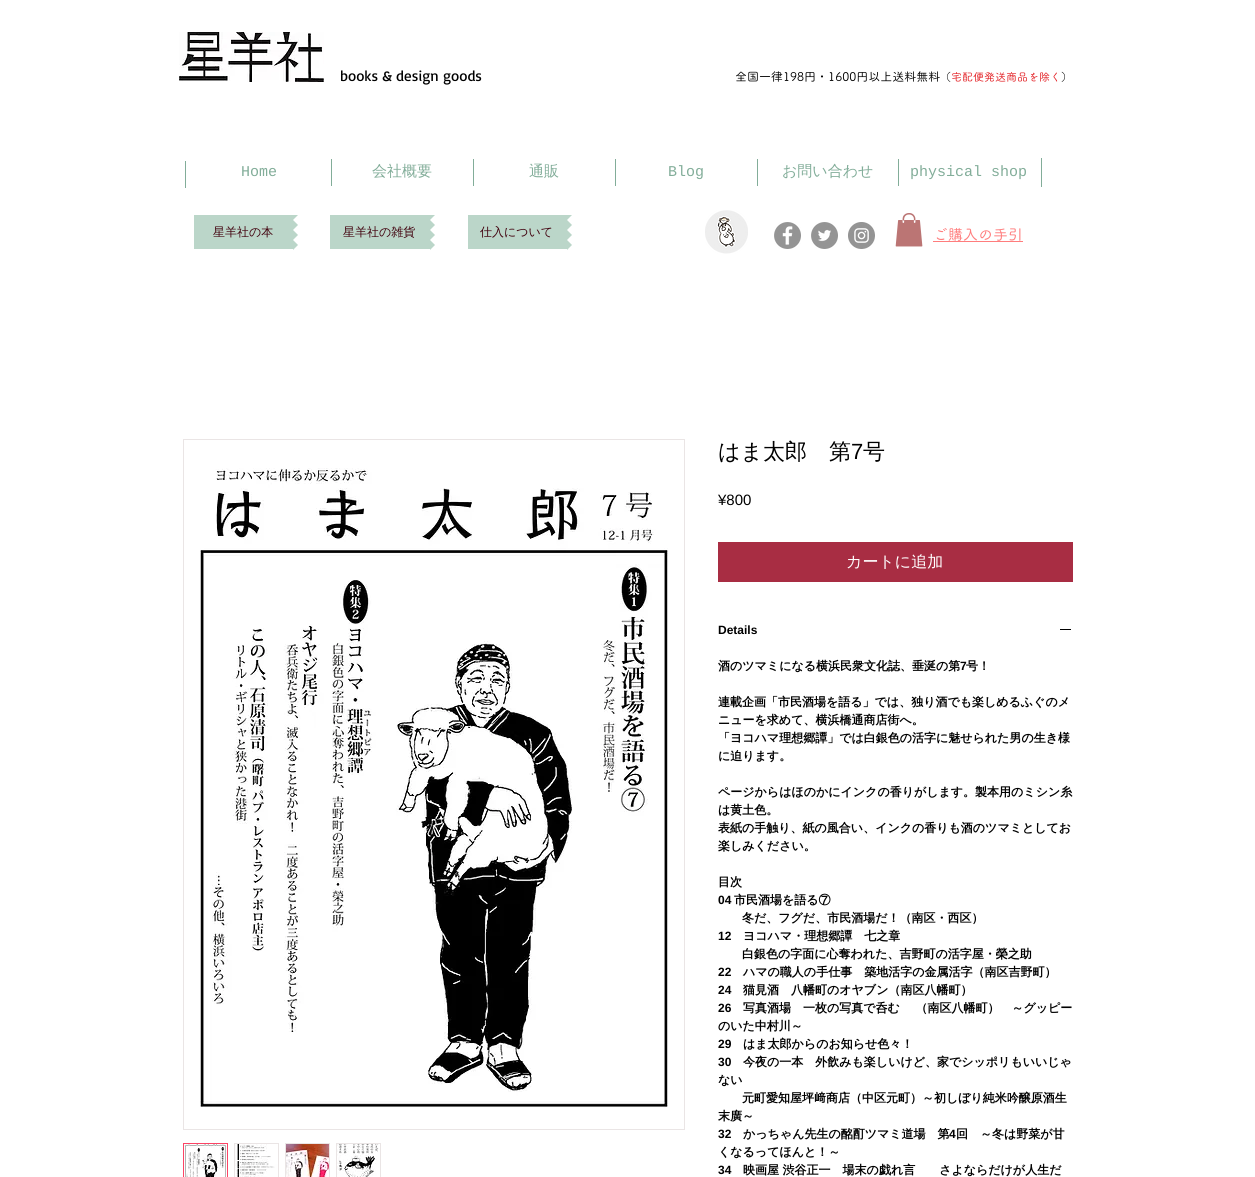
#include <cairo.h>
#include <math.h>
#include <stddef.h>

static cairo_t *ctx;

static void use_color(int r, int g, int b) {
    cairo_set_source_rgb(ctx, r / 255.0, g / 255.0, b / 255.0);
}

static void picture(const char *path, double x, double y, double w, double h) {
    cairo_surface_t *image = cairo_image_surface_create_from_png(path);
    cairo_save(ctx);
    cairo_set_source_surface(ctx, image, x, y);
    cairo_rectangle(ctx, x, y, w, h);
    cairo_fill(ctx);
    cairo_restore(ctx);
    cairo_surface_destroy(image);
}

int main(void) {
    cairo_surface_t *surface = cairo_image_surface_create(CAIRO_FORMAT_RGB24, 1255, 1177);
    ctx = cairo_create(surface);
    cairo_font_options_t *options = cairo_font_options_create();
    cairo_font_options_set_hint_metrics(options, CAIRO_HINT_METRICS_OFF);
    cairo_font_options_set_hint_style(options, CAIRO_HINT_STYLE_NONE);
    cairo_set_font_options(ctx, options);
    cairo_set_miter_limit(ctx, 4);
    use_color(255, 255, 255);
    cairo_paint(ctx);
    picture("img1.png", 179, 32, 145, 50);
    cairo_select_font_face(ctx, "Basic", CAIRO_FONT_SLANT_NORMAL, CAIRO_FONT_WEIGHT_NORMAL);
    cairo_set_font_size(ctx, 15);
    use_color(0, 0, 0);
    cairo_move_to(ctx, 340, 81);
    cairo_show_text(ctx, "books & design goods");
    cairo_select_font_face(ctx, "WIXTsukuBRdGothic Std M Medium", CAIRO_FONT_SLANT_NORMAL, CAIRO_FONT_WEIGHT_NORMAL);
    cairo_set_font_size(ctx, 12);
    cairo_move_to(ctx, 735, 81);
    cairo_show_text(ctx, "全国一律198円・1600円以上送料無料");
    cairo_set_font_size(ctx, 11);
    cairo_move_to(ctx, 940, 81);
    cairo_show_text(ctx, "（");
    use_color(226, 28, 33);
    cairo_move_to(ctx, 951, 81);
    cairo_show_text(ctx, "宅配便発送商品を除く");
    use_color(0, 0, 0);
    cairo_move_to(ctx, 1061, 81);
    cairo_show_text(ctx, "）");
    use_color(130, 173, 153);
    cairo_rectangle(ctx, 185, 161, 1, 27);
    cairo_fill(ctx);
    cairo_select_font_face(ctx, "Liberation Mono", CAIRO_FONT_SLANT_NORMAL, CAIRO_FONT_WEIGHT_NORMAL);
    cairo_set_font_size(ctx, 15);
    cairo_move_to(ctx, 241, 176);
    cairo_show_text(ctx, "Home");
    cairo_rectangle(ctx, 331, 159, 1, 27);
    cairo_fill(ctx);
    cairo_select_font_face(ctx, "WenQuanYi Zen Hei Medium", CAIRO_FONT_SLANT_NORMAL, CAIRO_FONT_WEIGHT_NORMAL);
    cairo_move_to(ctx, 372, 176);
    cairo_show_text(ctx, "会社概要");
    cairo_rectangle(ctx, 473, 159, 1, 27);
    cairo_fill(ctx);
    cairo_move_to(ctx, 529, 176);
    cairo_show_text(ctx, "通販");
    cairo_rectangle(ctx, 615, 159, 1, 27);
    cairo_fill(ctx);
    cairo_select_font_face(ctx, "Liberation Mono", CAIRO_FONT_SLANT_NORMAL, CAIRO_FONT_WEIGHT_NORMAL);
    cairo_move_to(ctx, 668, 176);
    cairo_show_text(ctx, "Blog");
    cairo_rectangle(ctx, 757, 159, 1, 27);
    cairo_fill(ctx);
    cairo_select_font_face(ctx, "WenQuanYi Zen Hei Medium", CAIRO_FONT_SLANT_NORMAL, CAIRO_FONT_WEIGHT_NORMAL);
    cairo_move_to(ctx, 782, 176);
    cairo_show_text(ctx, "お問い合わせ");
    cairo_rectangle(ctx, 898, 159, 1, 27);
    cairo_fill(ctx);
    cairo_select_font_face(ctx, "Liberation Mono", CAIRO_FONT_SLANT_NORMAL, CAIRO_FONT_WEIGHT_NORMAL);
    cairo_move_to(ctx, 910, 176);
    cairo_show_text(ctx, "physical shop");
    cairo_rectangle(ctx, 1041, 158, 1, 29);
    cairo_fill(ctx);
    use_color(187, 214, 201);
    cairo_rectangle(ctx, 194, 215, 99, 34);
    cairo_fill(ctx);
    cairo_select_font_face(ctx, "WenQuanYi Zen Hei Medium", CAIRO_FONT_SLANT_NORMAL, CAIRO_FONT_WEIGHT_NORMAL);
    cairo_set_font_size(ctx, 12);
    use_color(66, 3, 15);
    cairo_move_to(ctx, 213, 236);
    cairo_show_text(ctx, "星羊社の本");
    cairo_save(ctx);
    cairo_rectangle(ctx, 293, 215, 5, 34);
    cairo_clip(ctx);
    use_color(187, 214, 201);
    cairo_new_path(ctx);
    cairo_move_to(ctx, 293, 220);
    cairo_line_to(ctx, 293, 210);
    cairo_line_to(ctx, 298, 215);
    cairo_close_path(ctx);
    cairo_fill(ctx);
    cairo_restore(ctx);
    use_color(187, 214, 201);
    cairo_new_path(ctx);
    cairo_move_to(ctx, 293, 230);
    cairo_line_to(ctx, 293, 220);
    cairo_line_to(ctx, 298, 225);
    cairo_close_path(ctx);
    cairo_move_to(ctx, 293, 240);
    cairo_line_to(ctx, 293, 230);
    cairo_line_to(ctx, 298, 235);
    cairo_close_path(ctx);
    cairo_move_to(ctx, 293, 250);
    cairo_line_to(ctx, 293, 240);
    cairo_line_to(ctx, 298, 245);
    cairo_close_path(ctx);
    cairo_fill(ctx);
    cairo_rectangle(ctx, 330, 215, 100, 34);
    cairo_fill(ctx);
    use_color(66, 3, 15);
    cairo_move_to(ctx, 343, 236);
    cairo_show_text(ctx, "星羊社の雑貨");
    cairo_save(ctx);
    cairo_rectangle(ctx, 430, 215, 5, 34);
    cairo_clip(ctx);
    use_color(187, 214, 201);
    cairo_new_path(ctx);
    cairo_move_to(ctx, 430, 220);
    cairo_line_to(ctx, 430, 210);
    cairo_line_to(ctx, 435, 215);
    cairo_close_path(ctx);
    cairo_fill(ctx);
    cairo_restore(ctx);
    use_color(187, 214, 201);
    cairo_new_path(ctx);
    cairo_move_to(ctx, 430, 230);
    cairo_line_to(ctx, 430, 220);
    cairo_line_to(ctx, 435, 225);
    cairo_close_path(ctx);
    cairo_move_to(ctx, 430, 240);
    cairo_line_to(ctx, 430, 230);
    cairo_line_to(ctx, 435, 235);
    cairo_close_path(ctx);
    cairo_move_to(ctx, 430, 250);
    cairo_line_to(ctx, 430, 240);
    cairo_line_to(ctx, 435, 245);
    cairo_close_path(ctx);
    cairo_fill(ctx);
    cairo_rectangle(ctx, 468, 215, 99, 34);
    cairo_fill(ctx);
    use_color(66, 3, 15);
    cairo_move_to(ctx, 480, 236);
    cairo_show_text(ctx, "仕入について");
    cairo_save(ctx);
    cairo_rectangle(ctx, 567, 215, 5, 34);
    cairo_clip(ctx);
    use_color(187, 214, 201);
    cairo_new_path(ctx);
    cairo_move_to(ctx, 567, 220);
    cairo_line_to(ctx, 567, 210);
    cairo_line_to(ctx, 572, 215);
    cairo_close_path(ctx);
    cairo_fill(ctx);
    cairo_restore(ctx);
    use_color(187, 214, 201);
    cairo_new_path(ctx);
    cairo_move_to(ctx, 567, 230);
    cairo_line_to(ctx, 567, 220);
    cairo_line_to(ctx, 572, 225);
    cairo_close_path(ctx);
    cairo_move_to(ctx, 567, 240);
    cairo_line_to(ctx, 567, 230);
    cairo_line_to(ctx, 572, 235);
    cairo_close_path(ctx);
    cairo_move_to(ctx, 567, 250);
    cairo_line_to(ctx, 567, 240);
    cairo_line_to(ctx, 572, 245);
    cairo_close_path(ctx);
    cairo_fill(ctx);
    picture("img2.png", 705, 210, 43, 44);
    picture("img3.png", 774, 222, 27, 27);
    picture("img4.png", 811, 222, 27, 27);
    picture("img5.png", 848, 222, 27, 27);
    picture("img6.png", 895, 213, 28, 34);
    cairo_select_font_face(ctx, "WIXTsukuBRdGothic Std M Medium", CAIRO_FONT_SLANT_NORMAL, CAIRO_FONT_WEIGHT_NORMAL);
    cairo_set_font_size(ctx, 15);
    use_color(255, 125, 125);
    cairo_move_to(ctx, 933, 240);
    cairo_show_text(ctx, "ご購入の手引");
    cairo_rectangle(ctx, 933, 241, 90, 1);
    cairo_fill(ctx);
    cairo_rectangle(ctx, 183.5, 439.5, 501, 690);
    use_color(234, 229, 229);
    cairo_set_line_width(ctx, 1);
    cairo_stroke(ctx);
    picture("img7.png", 200, 468, 468, 640);
    cairo_rectangle(ctx, 183.5, 1143.5, 44, 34);
    use_color(252, 68, 101);
    cairo_stroke(ctx);
    picture("img8.png", 184, 1144, 43, 33);
    use_color(234, 229, 229);
    cairo_rectangle(ctx, 234, 1143, 45, 34);
    cairo_fill(ctx);
    picture("img9.png", 235, 1144, 43, 33);
    cairo_rectangle(ctx, 285, 1143, 45, 34);
    cairo_fill(ctx);
    picture("img10.png", 286, 1144, 43, 33);
    cairo_rectangle(ctx, 336, 1143, 45, 34);
    cairo_fill(ctx);
    picture("img11.png", 337, 1144, 43, 33);
    cairo_select_font_face(ctx, "WenQuanYi Zen Hei Medium", CAIRO_FONT_SLANT_NORMAL, CAIRO_FONT_WEIGHT_NORMAL);
    cairo_set_font_size(ctx, 22);
    use_color(0, 0, 0);
    cairo_move_to(ctx, 718, 459);
    cairo_show_text(ctx, "はま太郎　第");
    cairo_select_font_face(ctx, "Liberation Sans", CAIRO_FONT_SLANT_NORMAL, CAIRO_FONT_WEIGHT_NORMAL);
    cairo_move_to(ctx, 851, 459);
    cairo_show_text(ctx, "7");
    cairo_select_font_face(ctx, "WenQuanYi Zen Hei Medium", CAIRO_FONT_SLANT_NORMAL, CAIRO_FONT_WEIGHT_NORMAL);
    cairo_move_to(ctx, 863, 459);
    cairo_show_text(ctx, "号");
    cairo_select_font_face(ctx, "Liberation Sans", CAIRO_FONT_SLANT_NORMAL, CAIRO_FONT_WEIGHT_NORMAL);
    cairo_set_font_size(ctx, 15);
    cairo_move_to(ctx, 718, 505);
    cairo_show_text(ctx, "¥800");
    use_color(168, 45, 67);
    cairo_rectangle(ctx, 718, 542, 355, 40);
    cairo_fill(ctx);
    cairo_select_font_face(ctx, "WenQuanYi Zen Hei Medium", CAIRO_FONT_SLANT_NORMAL, CAIRO_FONT_WEIGHT_NORMAL);
    cairo_set_font_size(ctx, 16);
    use_color(255, 255, 255);
    cairo_move_to(ctx, 846, 567);
    cairo_show_text(ctx, "カートに追加");
    cairo_select_font_face(ctx, "Liberation Sans", CAIRO_FONT_SLANT_NORMAL, CAIRO_FONT_WEIGHT_BOLD);
    cairo_set_font_size(ctx, 12);
    use_color(0, 0, 0);
    cairo_move_to(ctx, 718, 634);
    cairo_show_text(ctx, "Details");
    cairo_rectangle(ctx, 1060, 629, 11, 1);
    cairo_fill(ctx);
    cairo_select_font_face(ctx, "WenQuanYi Zen Hei", CAIRO_FONT_SLANT_NORMAL, CAIRO_FONT_WEIGHT_BOLD);
    cairo_move_to(ctx, 718, 670);
    cairo_show_text(ctx, "酒のツマミになる横浜民衆文化誌、垂涎の第");
    cairo_select_font_face(ctx, "Liberation Sans", CAIRO_FONT_SLANT_NORMAL, CAIRO_FONT_WEIGHT_BOLD);
    cairo_move_to(ctx, 960, 670);
    cairo_show_text(ctx, "7");
    cairo_select_font_face(ctx, "WenQuanYi Zen Hei", CAIRO_FONT_SLANT_NORMAL, CAIRO_FONT_WEIGHT_BOLD);
    cairo_move_to(ctx, 966, 670);
    cairo_show_text(ctx, "号！");
    cairo_move_to(ctx, 718, 706);
    cairo_show_text(ctx, "連載企画「市民酒場を語る」では、独り酒でも楽しめるふぐのメ");
    cairo_move_to(ctx, 718, 724);
    cairo_show_text(ctx, "ニューを求めて、横浜橋通商店街へ。");
    cairo_move_to(ctx, 718, 742);
    cairo_show_text(ctx, "「ヨコハマ理想郷譚」では白銀色の活字に魅せられた男の生き様");
    cairo_move_to(ctx, 718, 760);
    cairo_show_text(ctx, "に迫ります。");
    cairo_move_to(ctx, 718, 796);
    cairo_show_text(ctx, "ページからはほのかにインクの香りがします。製本用のミシン糸");
    cairo_move_to(ctx, 718, 814);
    cairo_show_text(ctx, "は黄土色。");
    cairo_move_to(ctx, 718, 832);
    cairo_show_text(ctx, "表紙の手触り、紙の風合い、インクの香りも酒のツマミとしてお");
    cairo_move_to(ctx, 718, 850);
    cairo_show_text(ctx, "楽しみください。");
    cairo_move_to(ctx, 718, 886);
    cairo_show_text(ctx, "目次");
    cairo_select_font_face(ctx, "Liberation Sans", CAIRO_FONT_SLANT_NORMAL, CAIRO_FONT_WEIGHT_BOLD);
    cairo_move_to(ctx, 718, 904);
    cairo_show_text(ctx, "04");
    cairo_select_font_face(ctx, "WenQuanYi Zen Hei", CAIRO_FONT_SLANT_NORMAL, CAIRO_FONT_WEIGHT_BOLD);
    cairo_move_to(ctx, 734, 904);
    cairo_show_text(ctx, "市民酒場を語る⑦");
    cairo_move_to(ctx, 742, 922);
    cairo_show_text(ctx, "冬だ、フグだ、市民酒場だ！（南区・西区）");
    cairo_select_font_face(ctx, "Liberation Sans", CAIRO_FONT_SLANT_NORMAL, CAIRO_FONT_WEIGHT_BOLD);
    cairo_move_to(ctx, 718, 940);
    cairo_show_text(ctx, "12");
    cairo_select_font_face(ctx, "WenQuanYi Zen Hei", CAIRO_FONT_SLANT_NORMAL, CAIRO_FONT_WEIGHT_BOLD);
    cairo_move_to(ctx, 743, 940);
    cairo_show_text(ctx, "ヨコハマ・理想郷譚　七之章");
    cairo_move_to(ctx, 742, 958);
    cairo_show_text(ctx, "白銀色の字面に心奪われた、吉野町の活字屋・榮之助");
    cairo_select_font_face(ctx, "Liberation Sans", CAIRO_FONT_SLANT_NORMAL, CAIRO_FONT_WEIGHT_BOLD);
    cairo_move_to(ctx, 718, 976);
    cairo_show_text(ctx, "22");
    cairo_select_font_face(ctx, "WenQuanYi Zen Hei", CAIRO_FONT_SLANT_NORMAL, CAIRO_FONT_WEIGHT_BOLD);
    cairo_move_to(ctx, 743, 976);
    cairo_show_text(ctx, "ハマの職人の手仕事　築地活字の金属活字（南区吉野町）");
    cairo_select_font_face(ctx, "Liberation Sans", CAIRO_FONT_SLANT_NORMAL, CAIRO_FONT_WEIGHT_BOLD);
    cairo_move_to(ctx, 718, 994);
    cairo_show_text(ctx, "24");
    cairo_select_font_face(ctx, "WenQuanYi Zen Hei", CAIRO_FONT_SLANT_NORMAL, CAIRO_FONT_WEIGHT_BOLD);
    cairo_move_to(ctx, 743, 994);
    cairo_show_text(ctx, "猫見酒　八幡町のオヤブン（南区八幡町）");
    cairo_select_font_face(ctx, "Liberation Sans", CAIRO_FONT_SLANT_NORMAL, CAIRO_FONT_WEIGHT_BOLD);
    cairo_move_to(ctx, 718, 1012);
    cairo_show_text(ctx, "26");
    cairo_select_font_face(ctx, "WenQuanYi Zen Hei", CAIRO_FONT_SLANT_NORMAL, CAIRO_FONT_WEIGHT_BOLD);
    cairo_move_to(ctx, 743, 1012);
    cairo_show_text(ctx, "写真酒場　一枚の写真で呑む 　（南区八幡町）　～グッピー");
    cairo_move_to(ctx, 718, 1030);
    cairo_show_text(ctx, "のいた中村川～");
    cairo_select_font_face(ctx, "Liberation Sans", CAIRO_FONT_SLANT_NORMAL, CAIRO_FONT_WEIGHT_BOLD);
    cairo_move_to(ctx, 718, 1048);
    cairo_show_text(ctx, "29");
    cairo_select_font_face(ctx, "WenQuanYi Zen Hei", CAIRO_FONT_SLANT_NORMAL, CAIRO_FONT_WEIGHT_BOLD);
    cairo_move_to(ctx, 743, 1048);
    cairo_show_text(ctx, "はま太郎からのお知らせ色々！");
    cairo_select_font_face(ctx, "Liberation Sans", CAIRO_FONT_SLANT_NORMAL, CAIRO_FONT_WEIGHT_BOLD);
    cairo_move_to(ctx, 718, 1066);
    cairo_show_text(ctx, "30");
    cairo_select_font_face(ctx, "WenQuanYi Zen Hei", CAIRO_FONT_SLANT_NORMAL, CAIRO_FONT_WEIGHT_BOLD);
    cairo_move_to(ctx, 743, 1066);
    cairo_show_text(ctx, "今夜の一本　外飲みも楽しいけど、家でシッポリもいいじゃ");
    cairo_move_to(ctx, 718, 1084);
    cairo_show_text(ctx, "ない");
    cairo_move_to(ctx, 742, 1102);
    cairo_show_text(ctx, "元町愛知屋坪");
    cairo_select_font_face(ctx, "IPAPGothic", CAIRO_FONT_SLANT_NORMAL, CAIRO_FONT_WEIGHT_BOLD);
    cairo_move_to(ctx, 814, 1102);
    cairo_show_text(ctx, "﨑");
    cairo_select_font_face(ctx, "WenQuanYi Zen Hei", CAIRO_FONT_SLANT_NORMAL, CAIRO_FONT_WEIGHT_BOLD);
    cairo_move_to(ctx, 826, 1102);
    cairo_show_text(ctx, "商店（中区元町）～初しぼり純米吟醸原酒生");
    cairo_move_to(ctx, 718, 1120);
    cairo_show_text(ctx, "末廣～");
    cairo_select_font_face(ctx, "Liberation Sans", CAIRO_FONT_SLANT_NORMAL, CAIRO_FONT_WEIGHT_BOLD);
    cairo_move_to(ctx, 718, 1138);
    cairo_show_text(ctx, "32");
    cairo_select_font_face(ctx, "WenQuanYi Zen Hei", CAIRO_FONT_SLANT_NORMAL, CAIRO_FONT_WEIGHT_BOLD);
    cairo_move_to(ctx, 743, 1138);
    cairo_show_text(ctx, "かっちゃん先生の酩酊ツマミ道場　第");
    cairo_select_font_face(ctx, "Liberation Sans", CAIRO_FONT_SLANT_NORMAL, CAIRO_FONT_WEIGHT_BOLD);
    cairo_move_to(ctx, 949, 1138);
    cairo_show_text(ctx, "4");
    cairo_select_font_face(ctx, "WenQuanYi Zen Hei", CAIRO_FONT_SLANT_NORMAL, CAIRO_FONT_WEIGHT_BOLD);
    cairo_move_to(ctx, 956, 1138);
    cairo_show_text(ctx, "回　～冬は野菜が甘");
    cairo_move_to(ctx, 718, 1156);
    cairo_show_text(ctx, "くなるってほんと！～");
    cairo_select_font_face(ctx, "Liberation Sans", CAIRO_FONT_SLANT_NORMAL, CAIRO_FONT_WEIGHT_BOLD);
    cairo_move_to(ctx, 718, 1174);
    cairo_show_text(ctx, "34");
    cairo_select_font_face(ctx, "WenQuanYi Zen Hei", CAIRO_FONT_SLANT_NORMAL, CAIRO_FONT_WEIGHT_BOLD);
    cairo_move_to(ctx, 743, 1174);
    cairo_show_text(ctx, "映画屋 渋谷正一　場末の戯れ言　　さよならだけが人生だ");
    cairo_surface_write_to_png(surface, "result.png");
    cairo_font_options_destroy(options);
    cairo_destroy(ctx);
    cairo_surface_destroy(surface);
    return 0;
}
